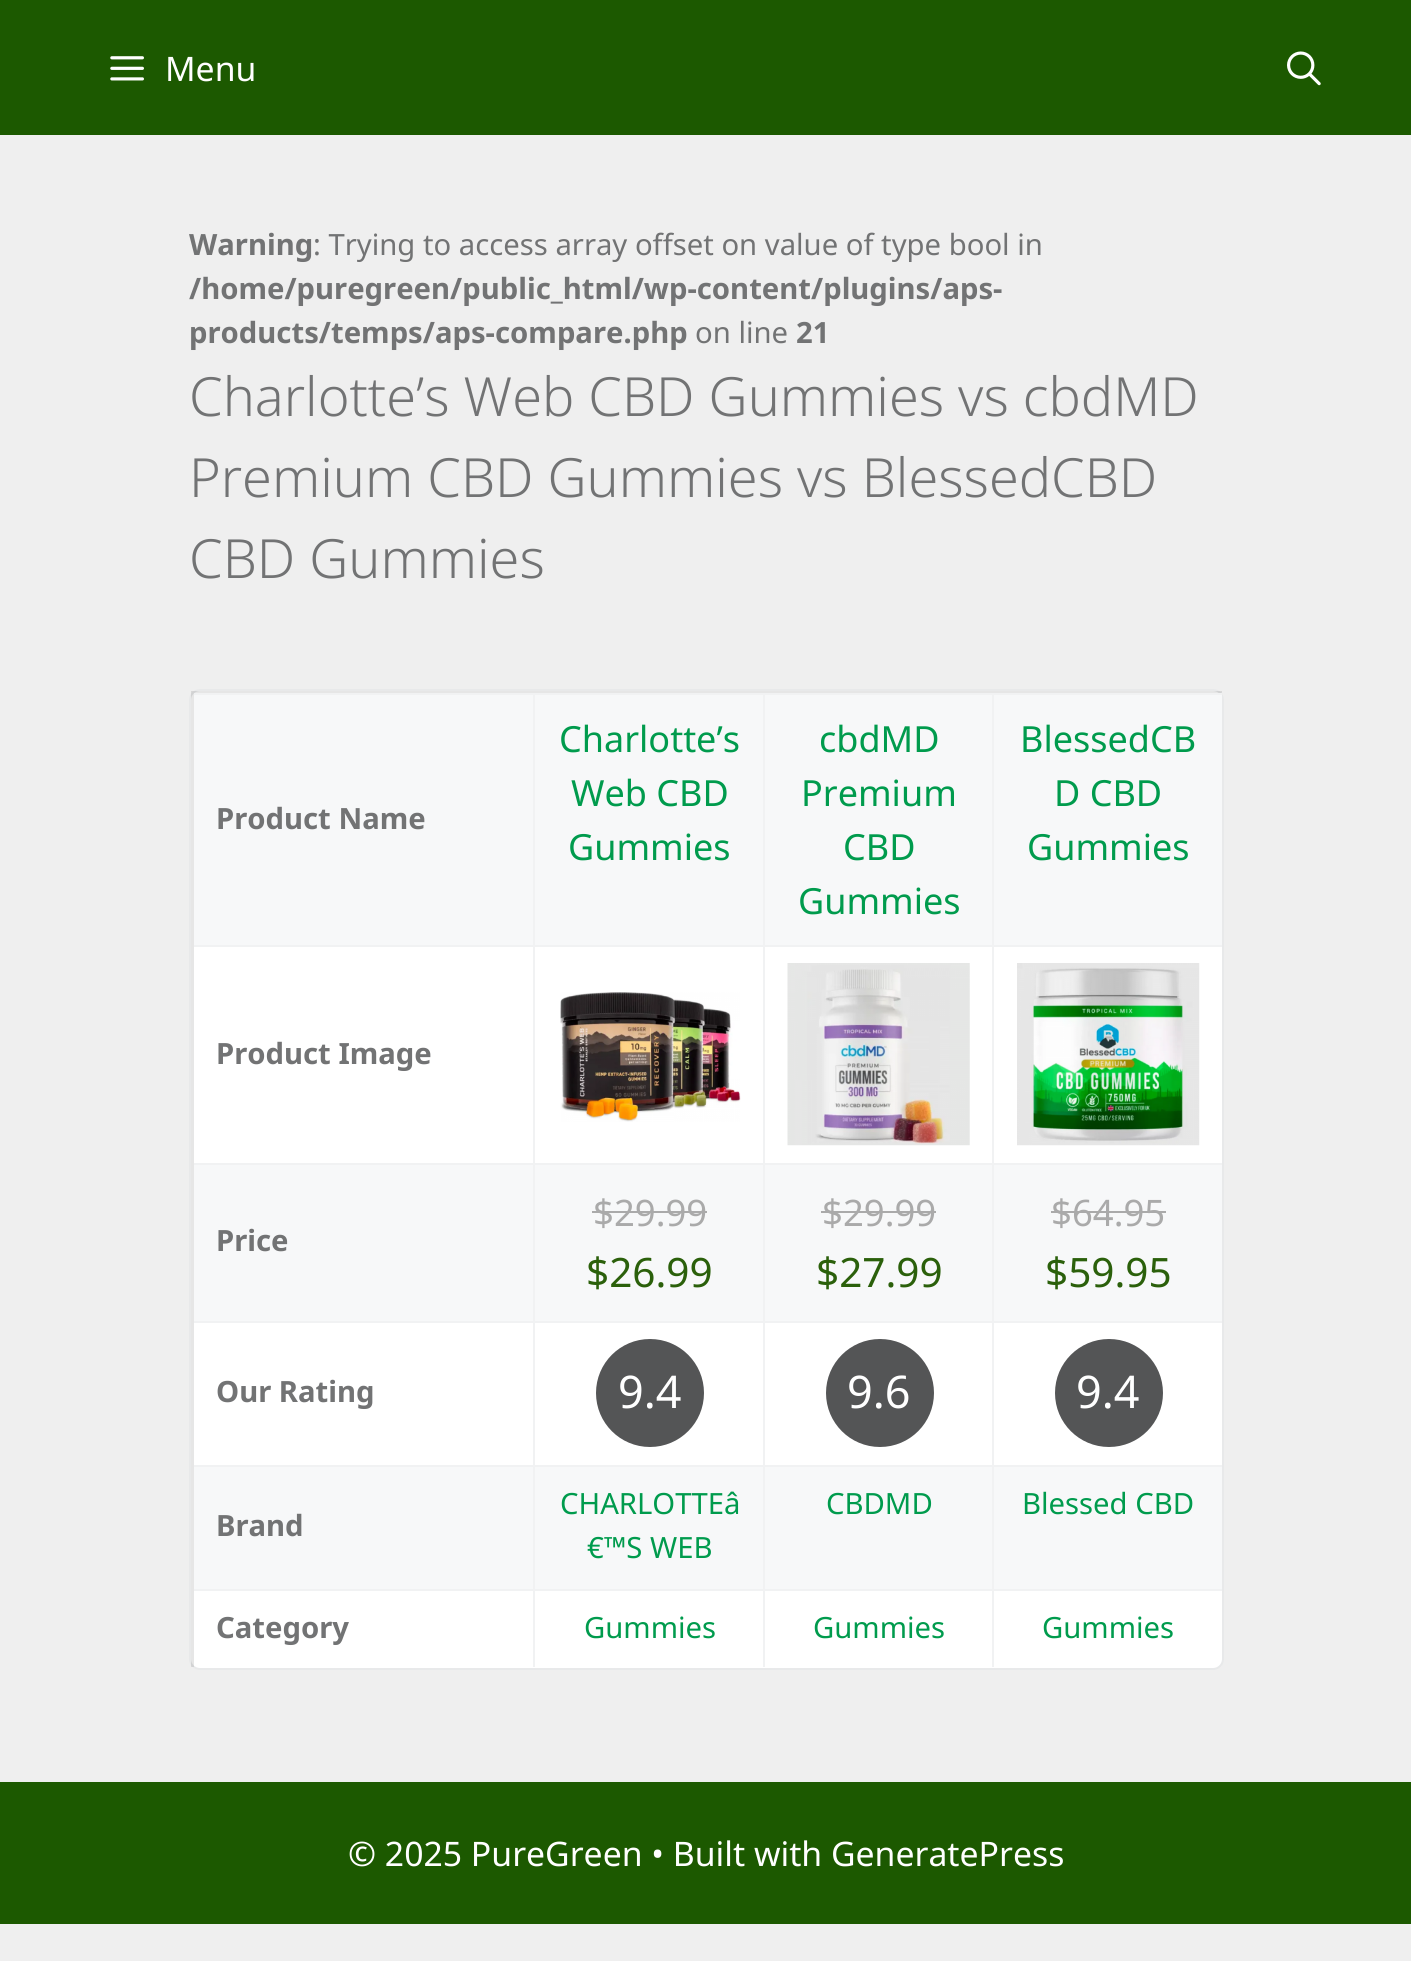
#include <cairo.h>
#include <math.h>
#include <stddef.h>

static cairo_t *ctx;

static void use_color(int r, int g, int b) {
    cairo_set_source_rgb(ctx, r / 255.0, g / 255.0, b / 255.0);
}

static void round_rect(double x, double y, double w, double h, double r) {
    cairo_new_sub_path(ctx);
    cairo_arc(ctx, x + w - r, y + h - r, r, 0, M_PI / 2);
    cairo_arc(ctx, x + r, y + h - r, r, M_PI / 2, M_PI);
    cairo_arc(ctx, x + r, y + r, r, M_PI, 1.5 * M_PI);
    cairo_arc(ctx, x + w - r, y + r, r, 1.5 * M_PI, 2 * M_PI);
    cairo_close_path(ctx);
}

static void picture(const char *path, double x, double y, double w, double h) {
    cairo_surface_t *image = cairo_image_surface_create_from_png(path);
    cairo_save(ctx);
    cairo_set_source_surface(ctx, image, x, y);
    cairo_rectangle(ctx, x, y, w, h);
    cairo_fill(ctx);
    cairo_restore(ctx);
    cairo_surface_destroy(image);
}

int main(void) {
    cairo_surface_t *surface = cairo_image_surface_create(CAIRO_FORMAT_RGB24, 1411, 1961);
    ctx = cairo_create(surface);
    cairo_font_options_t *options = cairo_font_options_create();
    cairo_font_options_set_hint_metrics(options, CAIRO_HINT_METRICS_OFF);
    cairo_font_options_set_hint_style(options, CAIRO_HINT_STYLE_NONE);
    cairo_set_font_options(ctx, options);
    cairo_set_miter_limit(ctx, 4);
    use_color(239, 239, 239);
    cairo_paint(ctx);
    use_color(28, 89, 0);
    cairo_rectangle(ctx, 0, 0, 1411, 135);
    cairo_fill(ctx);
    picture("img1.png", 110, 56, 34, 25);
    cairo_select_font_face(ctx, "Noto Sans", CAIRO_FONT_SLANT_NORMAL, CAIRO_FONT_WEIGHT_NORMAL);
    cairo_set_font_size(ctx, 33.75);
    use_color(255, 255, 255);
    cairo_move_to(ctx, 165, 81);
    cairo_show_text(ctx, "Menu");
    picture("img2.png", 1287, 51, 34, 35);
    cairo_select_font_face(ctx, "Noto Sans", CAIRO_FONT_SLANT_NORMAL, CAIRO_FONT_WEIGHT_BOLD);
    cairo_set_font_size(ctx, 29.25);
    use_color(114, 115, 116);
    cairo_move_to(ctx, 189, 255);
    cairo_show_text(ctx, "Warning");
    cairo_select_font_face(ctx, "Noto Sans", CAIRO_FONT_SLANT_NORMAL, CAIRO_FONT_WEIGHT_NORMAL);
    cairo_move_to(ctx, 313, 255);
    cairo_show_text(ctx, ": Trying to access array offset on value of type bool in");
    cairo_select_font_face(ctx, "Noto Sans", CAIRO_FONT_SLANT_NORMAL, CAIRO_FONT_WEIGHT_BOLD);
    cairo_move_to(ctx, 189, 299);
    cairo_show_text(ctx, "/home/puregreen/public_html/wp-content/plugins/aps-");
    cairo_move_to(ctx, 189, 343);
    cairo_show_text(ctx, "products/temps/aps-compare.php");
    cairo_select_font_face(ctx, "Noto Sans", CAIRO_FONT_SLANT_NORMAL, CAIRO_FONT_WEIGHT_NORMAL);
    cairo_move_to(ctx, 695, 343);
    cairo_show_text(ctx, "on line");
    cairo_select_font_face(ctx, "Noto Sans", CAIRO_FONT_SLANT_NORMAL, CAIRO_FONT_WEIGHT_BOLD);
    cairo_move_to(ctx, 796, 343);
    cairo_show_text(ctx, "21");
    cairo_select_font_face(ctx, "Noto Sans Light", CAIRO_FONT_SLANT_NORMAL, CAIRO_FONT_WEIGHT_NORMAL);
    cairo_set_font_size(ctx, 54);
    cairo_move_to(ctx, 189, 416);
    cairo_show_text(ctx, "Charlotte’s Web CBD Gummies vs cbdMD");
    cairo_move_to(ctx, 189, 497);
    cairo_show_text(ctx, "Premium CBD Gummies vs BlessedCBD");
    cairo_move_to(ctx, 189, 578);
    cairo_show_text(ctx, "CBD Gummies");
    use_color(255, 255, 255);
    round_rect(190, 690, 1033, 979, 10);
    cairo_fill_preserve(ctx);
    use_color(232, 233, 234);
    cairo_stroke(ctx);
    cairo_set_source_rgba(ctx, 0, 0, 0, 0.1);
    cairo_new_path(ctx);
    cairo_move_to(ctx, 191, 691);
    cairo_line_to(ctx, 1222, 691);
    cairo_line_to(ctx, 1222, 693);
    cairo_line_to(ctx, 194, 693);
    cairo_close_path(ctx);
    cairo_fill(ctx);
    cairo_new_path(ctx);
    cairo_move_to(ctx, 191, 1667);
    cairo_line_to(ctx, 191, 691);
    cairo_line_to(ctx, 194, 693);
    cairo_line_to(ctx, 194, 1667);
    cairo_close_path(ctx);
    cairo_fill(ctx);
    use_color(247, 248, 249);
    cairo_rectangle(ctx, 194, 695, 1028, 250);
    cairo_fill(ctx);
    use_color(241, 242, 243);
    cairo_rectangle(ctx, 194, 693, 1028, 2);
    cairo_fill(ctx);
    cairo_select_font_face(ctx, "Noto Sans", CAIRO_FONT_SLANT_NORMAL, CAIRO_FONT_WEIGHT_BOLD);
    cairo_set_font_size(ctx, 29.25);
    use_color(114, 115, 116);
    cairo_move_to(ctx, 216, 829);
    cairo_show_text(ctx, "Product Name");
    use_color(241, 242, 243);
    cairo_rectangle(ctx, 533, 693, 2, 252);
    cairo_fill(ctx);
    cairo_select_font_face(ctx, "Noto Sans", CAIRO_FONT_SLANT_NORMAL, CAIRO_FONT_WEIGHT_NORMAL);
    cairo_set_font_size(ctx, 36);
    use_color(0, 155, 77);
    cairo_move_to(ctx, 559, 752);
    cairo_show_text(ctx, "Charlotte’s");
    cairo_move_to(ctx, 571, 806);
    cairo_show_text(ctx, "Web CBD");
    cairo_move_to(ctx, 568, 860);
    cairo_show_text(ctx, "Gummies");
    use_color(241, 242, 243);
    cairo_rectangle(ctx, 763, 693, 2, 252);
    cairo_fill(ctx);
    use_color(0, 155, 77);
    cairo_move_to(ctx, 819, 752);
    cairo_show_text(ctx, "cbdMD");
    cairo_move_to(ctx, 801, 806);
    cairo_show_text(ctx, "Premium");
    cairo_move_to(ctx, 843, 860);
    cairo_show_text(ctx, "CBD");
    cairo_move_to(ctx, 798, 914);
    cairo_show_text(ctx, "Gummies");
    use_color(241, 242, 243);
    cairo_rectangle(ctx, 992, 693, 2, 252);
    cairo_fill(ctx);
    use_color(0, 155, 77);
    cairo_move_to(ctx, 1020, 752);
    cairo_show_text(ctx, "BlessedCB");
    cairo_move_to(ctx, 1054, 806);
    cairo_show_text(ctx, "D CBD");
    cairo_move_to(ctx, 1027, 860);
    cairo_show_text(ctx, "Gummies");
    use_color(241, 242, 243);
    cairo_rectangle(ctx, 194, 945, 1028, 2);
    cairo_fill(ctx);
    cairo_select_font_face(ctx, "Noto Sans", CAIRO_FONT_SLANT_NORMAL, CAIRO_FONT_WEIGHT_BOLD);
    cairo_set_font_size(ctx, 29.25);
    use_color(114, 115, 116);
    cairo_move_to(ctx, 216, 1064);
    cairo_show_text(ctx, "Product Image");
    use_color(241, 242, 243);
    cairo_rectangle(ctx, 533, 945, 2, 218);
    cairo_fill(ctx);
    picture("img3.png", 560, 992, 181, 130);
    cairo_rectangle(ctx, 763, 945, 2, 218);
    cairo_fill(ctx);
    picture("img4.png", 787, 963, 183, 183);
    cairo_rectangle(ctx, 992, 945, 2, 218);
    cairo_fill(ctx);
    picture("img5.png", 1017, 963, 183, 183);
    use_color(247, 248, 249);
    cairo_rectangle(ctx, 194, 1165, 1028, 156);
    cairo_fill(ctx);
    use_color(241, 242, 243);
    cairo_rectangle(ctx, 194, 1163, 1028, 2);
    cairo_fill(ctx);
    use_color(114, 115, 116);
    cairo_move_to(ctx, 216, 1251);
    cairo_show_text(ctx, "Price");
    use_color(241, 242, 243);
    cairo_rectangle(ctx, 533, 1163, 2, 158);
    cairo_fill(ctx);
    cairo_select_font_face(ctx, "Noto Sans", CAIRO_FONT_SLANT_NORMAL, CAIRO_FONT_WEIGHT_NORMAL);
    cairo_set_font_size(ctx, 36.5);
    use_color(170, 170, 170);
    cairo_move_to(ctx, 593, 1226);
    cairo_show_text(ctx, "$29.99");
    cairo_rectangle(ctx, 592, 1211, 115, 2);
    cairo_fill(ctx);
    cairo_set_font_size(ctx, 40.5);
    use_color(43, 96, 11);
    cairo_move_to(ctx, 586, 1287);
    cairo_show_text(ctx, "$26.99");
    use_color(241, 242, 243);
    cairo_rectangle(ctx, 763, 1163, 2, 158);
    cairo_fill(ctx);
    cairo_set_font_size(ctx, 36.5);
    use_color(170, 170, 170);
    cairo_move_to(ctx, 822, 1226);
    cairo_show_text(ctx, "$29.99");
    cairo_rectangle(ctx, 821, 1211, 115, 2);
    cairo_fill(ctx);
    cairo_set_font_size(ctx, 40.5);
    use_color(43, 96, 11);
    cairo_move_to(ctx, 816, 1287);
    cairo_show_text(ctx, "$27.99");
    use_color(241, 242, 243);
    cairo_rectangle(ctx, 992, 1163, 2, 158);
    cairo_fill(ctx);
    cairo_set_font_size(ctx, 36.5);
    use_color(170, 170, 170);
    cairo_move_to(ctx, 1051, 1226);
    cairo_show_text(ctx, "$64.95");
    cairo_rectangle(ctx, 1051, 1211, 115, 2);
    cairo_fill(ctx);
    cairo_set_font_size(ctx, 40.5);
    use_color(43, 96, 11);
    cairo_move_to(ctx, 1045, 1287);
    cairo_show_text(ctx, "$59.95");
    use_color(241, 242, 243);
    cairo_rectangle(ctx, 194, 1321, 1028, 2);
    cairo_fill(ctx);
    cairo_select_font_face(ctx, "Noto Sans", CAIRO_FONT_SLANT_NORMAL, CAIRO_FONT_WEIGHT_BOLD);
    cairo_set_font_size(ctx, 29.25);
    use_color(114, 115, 116);
    cairo_move_to(ctx, 216, 1402);
    cairo_show_text(ctx, "Our Rating");
    use_color(241, 242, 243);
    cairo_rectangle(ctx, 533, 1321, 2, 144);
    cairo_fill(ctx);
    use_color(84, 85, 86);
    cairo_arc(ctx, 650, 1393, 54, 0, 2 * M_PI);
    cairo_fill(ctx);
    cairo_select_font_face(ctx, "Noto Sans", CAIRO_FONT_SLANT_NORMAL, CAIRO_FONT_WEIGHT_NORMAL);
    cairo_set_font_size(ctx, 45);
    use_color(255, 255, 255);
    cairo_move_to(ctx, 618, 1408);
    cairo_show_text(ctx, "9.4");
    use_color(241, 242, 243);
    cairo_rectangle(ctx, 763, 1321, 2, 144);
    cairo_fill(ctx);
    use_color(84, 85, 86);
    cairo_arc(ctx, 880, 1393, 54, 0, 2 * M_PI);
    cairo_fill(ctx);
    use_color(255, 255, 255);
    cairo_move_to(ctx, 847, 1408);
    cairo_show_text(ctx, "9.6");
    use_color(241, 242, 243);
    cairo_rectangle(ctx, 992, 1321, 2, 144);
    cairo_fill(ctx);
    use_color(84, 85, 86);
    cairo_arc(ctx, 1109, 1393, 54, 0, 2 * M_PI);
    cairo_fill(ctx);
    use_color(255, 255, 255);
    cairo_move_to(ctx, 1076, 1408);
    cairo_show_text(ctx, "9.4");
    use_color(247, 248, 249);
    cairo_rectangle(ctx, 194, 1467, 1028, 122);
    cairo_fill(ctx);
    use_color(241, 242, 243);
    cairo_rectangle(ctx, 194, 1465, 1028, 2);
    cairo_fill(ctx);
    cairo_select_font_face(ctx, "Noto Sans", CAIRO_FONT_SLANT_NORMAL, CAIRO_FONT_WEIGHT_BOLD);
    cairo_set_font_size(ctx, 29.25);
    use_color(114, 115, 116);
    cairo_move_to(ctx, 216, 1536);
    cairo_show_text(ctx, "Brand");
    use_color(241, 242, 243);
    cairo_rectangle(ctx, 533, 1465, 2, 124);
    cairo_fill(ctx);
    cairo_select_font_face(ctx, "Noto Sans", CAIRO_FONT_SLANT_NORMAL, CAIRO_FONT_WEIGHT_NORMAL);
    use_color(0, 155, 77);
    cairo_move_to(ctx, 560, 1514);
    cairo_show_text(ctx, "CHARLOTTEâ");
    cairo_move_to(ctx, 587, 1558);
    cairo_show_text(ctx, "€™S WEB");
    use_color(241, 242, 243);
    cairo_rectangle(ctx, 763, 1465, 2, 124);
    cairo_fill(ctx);
    use_color(0, 155, 77);
    cairo_move_to(ctx, 826, 1514);
    cairo_show_text(ctx, "CBDMD");
    use_color(241, 242, 243);
    cairo_rectangle(ctx, 992, 1465, 2, 124);
    cairo_fill(ctx);
    use_color(0, 155, 77);
    cairo_move_to(ctx, 1022, 1514);
    cairo_show_text(ctx, "Blessed CBD");
    use_color(241, 242, 243);
    cairo_rectangle(ctx, 194, 1589, 1028, 2);
    cairo_fill(ctx);
    cairo_select_font_face(ctx, "Noto Sans", CAIRO_FONT_SLANT_NORMAL, CAIRO_FONT_WEIGHT_BOLD);
    use_color(114, 115, 116);
    cairo_move_to(ctx, 216, 1638);
    cairo_show_text(ctx, "Category");
    use_color(241, 242, 243);
    cairo_rectangle(ctx, 533, 1589, 2, 78);
    cairo_fill(ctx);
    cairo_select_font_face(ctx, "Noto Sans", CAIRO_FONT_SLANT_NORMAL, CAIRO_FONT_WEIGHT_NORMAL);
    use_color(0, 155, 77);
    cairo_move_to(ctx, 584, 1638);
    cairo_show_text(ctx, "Gummies");
    use_color(241, 242, 243);
    cairo_rectangle(ctx, 763, 1589, 2, 78);
    cairo_fill(ctx);
    use_color(0, 155, 77);
    cairo_move_to(ctx, 813, 1638);
    cairo_show_text(ctx, "Gummies");
    use_color(241, 242, 243);
    cairo_rectangle(ctx, 992, 1589, 2, 78);
    cairo_fill(ctx);
    use_color(0, 155, 77);
    cairo_move_to(ctx, 1042, 1638);
    cairo_show_text(ctx, "Gummies");
    use_color(28, 89, 0);
    cairo_rectangle(ctx, 0, 1782, 1411, 142);
    cairo_fill(ctx);
    cairo_set_font_size(ctx, 33.75);
    use_color(255, 255, 255);
    cairo_move_to(ctx, 348, 1866);
    cairo_show_text(ctx, "© 2025 PureGreen • Built with GeneratePress");
    cairo_surface_write_to_png(surface, "result.png");
    cairo_font_options_destroy(options);
    cairo_destroy(ctx);
    cairo_surface_destroy(surface);
    return 0;
}
